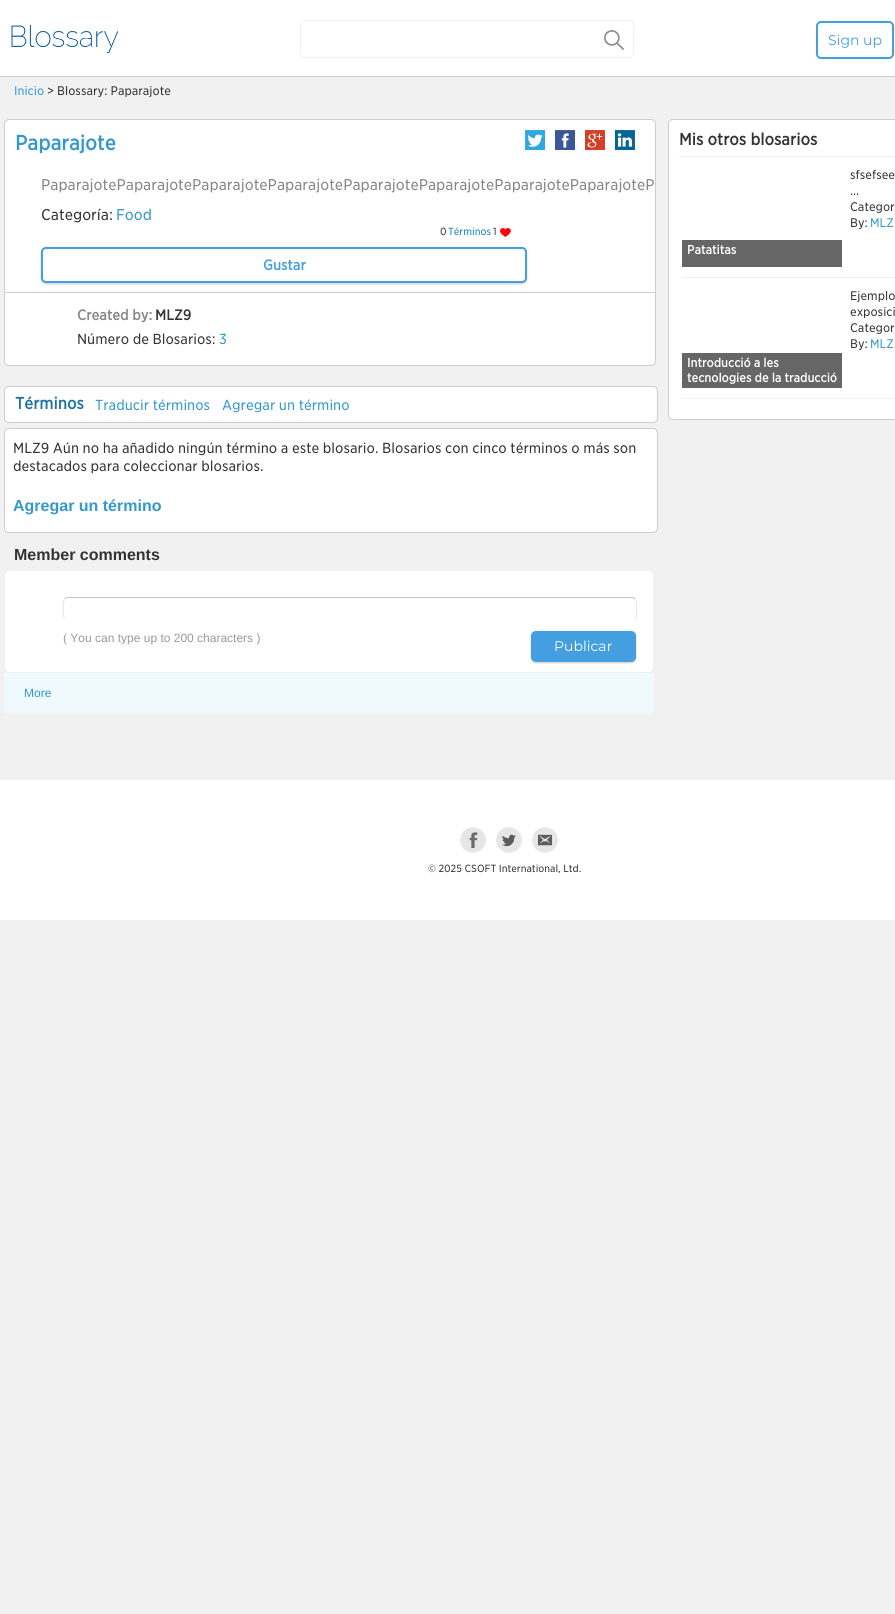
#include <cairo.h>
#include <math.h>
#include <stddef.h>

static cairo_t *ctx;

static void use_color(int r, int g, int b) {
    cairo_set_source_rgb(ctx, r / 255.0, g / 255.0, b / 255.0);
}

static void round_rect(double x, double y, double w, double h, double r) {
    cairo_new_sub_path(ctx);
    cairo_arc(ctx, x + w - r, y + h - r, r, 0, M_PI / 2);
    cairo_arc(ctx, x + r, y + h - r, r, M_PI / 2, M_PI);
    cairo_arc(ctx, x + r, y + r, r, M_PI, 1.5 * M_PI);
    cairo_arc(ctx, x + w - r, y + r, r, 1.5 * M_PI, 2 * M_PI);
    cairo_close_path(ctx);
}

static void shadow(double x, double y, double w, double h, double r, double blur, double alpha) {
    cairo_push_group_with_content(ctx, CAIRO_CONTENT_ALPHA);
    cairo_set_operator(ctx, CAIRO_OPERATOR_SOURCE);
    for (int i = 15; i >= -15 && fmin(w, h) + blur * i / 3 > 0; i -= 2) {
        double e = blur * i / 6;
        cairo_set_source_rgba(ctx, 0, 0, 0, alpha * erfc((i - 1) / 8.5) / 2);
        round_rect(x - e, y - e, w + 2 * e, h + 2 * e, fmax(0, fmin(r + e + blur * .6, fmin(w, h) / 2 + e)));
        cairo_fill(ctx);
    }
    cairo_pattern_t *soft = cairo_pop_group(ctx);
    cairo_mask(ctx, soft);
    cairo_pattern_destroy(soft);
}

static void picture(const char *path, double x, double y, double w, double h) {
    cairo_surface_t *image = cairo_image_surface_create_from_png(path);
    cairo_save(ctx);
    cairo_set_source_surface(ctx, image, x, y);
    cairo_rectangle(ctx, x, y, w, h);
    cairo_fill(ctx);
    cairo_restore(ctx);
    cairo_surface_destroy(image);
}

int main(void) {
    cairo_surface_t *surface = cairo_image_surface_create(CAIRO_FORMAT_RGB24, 895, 1614);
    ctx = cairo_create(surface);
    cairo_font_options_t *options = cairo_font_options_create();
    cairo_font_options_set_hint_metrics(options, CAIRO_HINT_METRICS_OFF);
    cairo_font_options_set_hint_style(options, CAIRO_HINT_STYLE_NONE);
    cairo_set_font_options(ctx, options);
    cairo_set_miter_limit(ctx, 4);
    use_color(241, 241, 241);
    cairo_paint(ctx);
    use_color(255, 255, 255);
    cairo_rectangle(ctx, 0, 0, 895, 76);
    cairo_fill(ctx);
    use_color(205, 205, 205);
    cairo_rectangle(ctx, 0, 76, 895, 1);
    cairo_fill(ctx);
    picture("img1.png", 11, 25, 108, 28);
    round_rect(300.5, 20.5, 333, 37, 4.5);
    use_color(241, 241, 241);
    cairo_set_line_width(ctx, 1);
    cairo_stroke(ctx);
    picture("img2.png", 604, 30, 20, 20);
    round_rect(817, 22, 76, 36, 4);
    use_color(67, 159, 224);
    cairo_set_line_width(ctx, 2);
    cairo_stroke(ctx);
    cairo_select_font_face(ctx, "Montserrat", CAIRO_FONT_SLANT_NORMAL, CAIRO_FONT_WEIGHT_NORMAL);
    cairo_set_font_size(ctx, 14);
    cairo_move_to(ctx, 828, 45);
    cairo_show_text(ctx, "Sign up");
    cairo_select_font_face(ctx, "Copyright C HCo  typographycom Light", CAIRO_FONT_SLANT_NORMAL, CAIRO_FONT_WEIGHT_NORMAL);
    cairo_set_font_size(ctx, 12);
    use_color(51, 153, 204);
    cairo_move_to(ctx, 14, 95);
    cairo_show_text(ctx, "Inicio");
    use_color(51, 51, 51);
    cairo_move_to(ctx, 47, 95);
    cairo_show_text(ctx, "> Blossary: Paparajote");
    use_color(255, 255, 255);
    cairo_new_path(ctx);
    cairo_move_to(ctx, 9, 119);
    cairo_line_to(ctx, 651, 119);
    cairo_curve_to(ctx, 654, 119, 656, 121, 656, 124);
    cairo_line_to(ctx, 656, 166);
    cairo_line_to(ctx, 4, 166);
    cairo_line_to(ctx, 4, 124);
    cairo_curve_to(ctx, 4, 121, 6, 119, 9, 119);
    cairo_close_path(ctx);
    cairo_fill(ctx);
    use_color(205, 205, 205);
    cairo_set_fill_rule(ctx, CAIRO_FILL_RULE_EVEN_ODD);
    cairo_new_path(ctx);
    cairo_move_to(ctx, 9, 119);
    cairo_line_to(ctx, 651, 119);
    cairo_curve_to(ctx, 654, 119, 656, 121, 656, 124);
    cairo_line_to(ctx, 656, 166);
    cairo_line_to(ctx, 4, 166);
    cairo_line_to(ctx, 4, 124);
    cairo_curve_to(ctx, 4, 121, 6, 119, 9, 119);
    cairo_close_path(ctx);
    cairo_move_to(ctx, 9, 120);
    cairo_line_to(ctx, 651, 120);
    cairo_curve_to(ctx, 653, 120, 655, 122, 655, 124);
    cairo_line_to(ctx, 655, 166);
    cairo_line_to(ctx, 5, 166);
    cairo_line_to(ctx, 5, 124);
    cairo_curve_to(ctx, 5, 122, 7, 120, 9, 120);
    cairo_close_path(ctx);
    cairo_fill(ctx);
    cairo_select_font_face(ctx, "Copyright C HCo  typographycom", CAIRO_FONT_SLANT_NORMAL, CAIRO_FONT_WEIGHT_BOLD);
    cairo_set_font_size(ctx, 20);
    use_color(51, 153, 204);
    cairo_move_to(ctx, 15, 150);
    cairo_show_text(ctx, "Paparajote");
    picture("img3.png", 525, 130, 20, 20);
    picture("img4.png", 555, 130, 20, 20);
    picture("img5.png", 585, 130, 20, 20);
    picture("img6.png", 615, 130, 20, 20);
    use_color(255, 255, 255);
    cairo_rectangle(ctx, 5, 166, 650, 126);
    cairo_fill(ctx);
    use_color(205, 205, 205);
    cairo_rectangle(ctx, 655, 166, 1, 126);
    cairo_fill(ctx);
    cairo_rectangle(ctx, 4, 166, 1, 126);
    cairo_fill(ctx);
    cairo_select_font_face(ctx, "Copyright C HCo  typographycom Light", CAIRO_FONT_SLANT_NORMAL, CAIRO_FONT_WEIGHT_NORMAL);
    cairo_set_font_size(ctx, 15);
    use_color(134, 134, 134);
    cairo_move_to(ctx, 41, 190);
    cairo_show_text(ctx, "PaparajotePaparajotePaparajotePaparajotePaparajotePaparajotePaparajotePaparajoteP");
    use_color(51, 51, 51);
    cairo_move_to(ctx, 41, 220);
    cairo_show_text(ctx, "Categoría:");
    use_color(51, 153, 204);
    cairo_move_to(ctx, 116, 220);
    cairo_show_text(ctx, "Food");
    cairo_set_font_size(ctx, 10);
    use_color(51, 51, 51);
    cairo_move_to(ctx, 440, 235);
    cairo_show_text(ctx, "0");
    use_color(18, 127, 194);
    cairo_move_to(ctx, 448, 235);
    cairo_show_text(ctx, "Términos");
    use_color(51, 51, 51);
    cairo_move_to(ctx, 493, 235);
    cairo_show_text(ctx, "1");
    picture("img7.png", 500, 228, 11, 9);
    use_color(0, 0, 0);
    shadow(41, 248, 486, 36, 5, 1, 0.2);
    use_color(255, 255, 255);
    round_rect(42, 248, 484, 34, 4);
    cairo_fill_preserve(ctx);
    use_color(67, 159, 224);
    cairo_stroke(ctx);
    cairo_select_font_face(ctx, "Copyright C HCo  typographycom", CAIRO_FONT_SLANT_NORMAL, CAIRO_FONT_WEIGHT_BOLD);
    cairo_set_font_size(ctx, 14);
    cairo_move_to(ctx, 263, 270);
    cairo_show_text(ctx, "Gustar");
    use_color(255, 255, 255);
    cairo_new_path(ctx);
    cairo_move_to(ctx, 4.5, 292.5);
    cairo_line_to(ctx, 655.5, 292.5);
    cairo_line_to(ctx, 655.5, 361);
    cairo_curve_to(ctx, 655.5, 363.5, 653.5, 365.5, 651, 365.5);
    cairo_line_to(ctx, 9, 365.5);
    cairo_curve_to(ctx, 6.5, 365.5, 4.5, 363.5, 4.5, 361);
    cairo_close_path(ctx);
    cairo_fill_preserve(ctx);
    use_color(205, 205, 205);
    cairo_set_line_width(ctx, 1);
    cairo_stroke(ctx);
    use_color(134, 134, 134);
    cairo_move_to(ctx, 77, 320);
    cairo_show_text(ctx, "Created by:");
    use_color(51, 51, 51);
    cairo_move_to(ctx, 155, 320);
    cairo_show_text(ctx, "MLZ9");
    cairo_select_font_face(ctx, "Copyright C HCo  typographycom Light", CAIRO_FONT_SLANT_NORMAL, CAIRO_FONT_WEIGHT_NORMAL);
    cairo_move_to(ctx, 77, 344);
    cairo_show_text(ctx, "Número de Blosarios:");
    use_color(51, 153, 204);
    cairo_move_to(ctx, 219, 344);
    cairo_show_text(ctx, "3");
    use_color(255, 255, 255);
    round_rect(4.5, 386.5, 653, 36, 4.5);
    cairo_fill_preserve(ctx);
    use_color(205, 205, 205);
    cairo_stroke(ctx);
    cairo_select_font_face(ctx, "Copyright C HCo  typographycom", CAIRO_FONT_SLANT_NORMAL, CAIRO_FONT_WEIGHT_BOLD);
    cairo_set_font_size(ctx, 16);
    use_color(30, 114, 161);
    cairo_move_to(ctx, 15, 409);
    cairo_show_text(ctx, "Términos");
    cairo_select_font_face(ctx, "Copyright C HCo  typographycom Light", CAIRO_FONT_SLANT_NORMAL, CAIRO_FONT_WEIGHT_NORMAL);
    cairo_set_font_size(ctx, 14);
    use_color(51, 153, 204);
    cairo_move_to(ctx, 95, 410);
    cairo_show_text(ctx, "Traducir términos");
    cairo_move_to(ctx, 222, 410);
    cairo_show_text(ctx, "Agregar un término");
    use_color(255, 255, 255);
    round_rect(4.5, 428.5, 653, 104, 4.5);
    cairo_fill_preserve(ctx);
    use_color(205, 205, 205);
    cairo_stroke(ctx);
    use_color(51, 51, 51);
    cairo_move_to(ctx, 13, 453);
    cairo_show_text(ctx, "MLZ9 Aún no ha añadido ningún término a este blosario. Blosarios con cinco términos o más son");
    cairo_move_to(ctx, 13, 471);
    cairo_show_text(ctx, "destacados para coleccionar blosarios.");
    cairo_select_font_face(ctx, "Liberation Sans", CAIRO_FONT_SLANT_NORMAL, CAIRO_FONT_WEIGHT_BOLD);
    cairo_set_font_size(ctx, 16);
    use_color(51, 153, 204);
    cairo_move_to(ctx, 13, 511);
    cairo_show_text(ctx, "Agregar un término");
    use_color(51, 51, 51);
    cairo_move_to(ctx, 14, 560);
    cairo_show_text(ctx, "Member comments");
    use_color(255, 255, 255);
    round_rect(5, 571, 648, 101, 5);
    cairo_fill(ctx);
    cairo_new_path(ctx);
    cairo_move_to(ctx, 65, 599);
    cairo_curve_to(ctx, 65.5, 598, 67, 597.5, 68, 597.5);
    cairo_line_to(ctx, 632, 597.5);
    cairo_curve_to(ctx, 633, 597.5, 634.5, 598, 635, 599);
    use_color(195, 195, 195);
    cairo_stroke(ctx);
    cairo_new_path(ctx);
    cairo_move_to(ctx, 635, 599);
    cairo_curve_to(ctx, 637.5, 601, 636.5, 606, 636.5, 609);
    cairo_curve_to(ctx, 636.5, 612, 637.5, 617, 635, 619);
    use_color(230, 230, 230);
    cairo_stroke(ctx);
    cairo_new_path(ctx);
    cairo_move_to(ctx, 65, 619);
    cairo_curve_to(ctx, 62.5, 617, 63.5, 612, 63.5, 609);
    cairo_curve_to(ctx, 63.5, 606, 62.5, 601, 65, 599);
    cairo_stroke(ctx);
    cairo_select_font_face(ctx, "Liberation Sans", CAIRO_FONT_SLANT_NORMAL, CAIRO_FONT_WEIGHT_NORMAL);
    cairo_set_font_size(ctx, 12);
    use_color(153, 153, 153);
    cairo_move_to(ctx, 63, 642);
    cairo_show_text(ctx, "( You can type up to 200 characters )");
    use_color(0, 0, 0);
    shadow(531, 632, 105, 31, 5, 1, 0.2);
    use_color(67, 159, 224);
    round_rect(531, 631, 105, 31, 5);
    cairo_fill(ctx);
    cairo_select_font_face(ctx, "Montserrat", CAIRO_FONT_SLANT_NORMAL, CAIRO_FONT_WEIGHT_NORMAL);
    cairo_set_font_size(ctx, 14);
    use_color(255, 255, 255);
    cairo_move_to(ctx, 554, 651);
    cairo_show_text(ctx, "Publicar");
    use_color(240, 249, 253);
    cairo_rectangle(ctx, 4, 673, 650, 40);
    cairo_fill(ctx);
    cairo_select_font_face(ctx, "Liberation Sans", CAIRO_FONT_SLANT_NORMAL, CAIRO_FONT_WEIGHT_NORMAL);
    cairo_set_font_size(ctx, 12);
    use_color(51, 153, 204);
    cairo_move_to(ctx, 24, 697);
    cairo_show_text(ctx, "More");
    use_color(255, 255, 255);
    round_rect(668.5, 119.5, 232, 300, 4.5);
    cairo_fill_preserve(ctx);
    use_color(205, 205, 205);
    cairo_stroke(ctx);
    use_color(242, 242, 242);
    cairo_rectangle(ctx, 679, 156, 216, 1);
    cairo_fill(ctx);
    cairo_select_font_face(ctx, "Copyright C HCo  typographycom", CAIRO_FONT_SLANT_NORMAL, CAIRO_FONT_WEIGHT_BOLD);
    cairo_set_font_size(ctx, 16);
    use_color(51, 51, 51);
    cairo_move_to(ctx, 679, 145);
    cairo_show_text(ctx, "Mis otros blosarios");
    use_color(242, 241, 246);
    cairo_rectangle(ctx, 682, 277, 213, 1);
    cairo_fill(ctx);
    cairo_select_font_face(ctx, "Copyright C HCo  typographycom Light", CAIRO_FONT_SLANT_NORMAL, CAIRO_FONT_WEIGHT_NORMAL);
    cairo_set_font_size(ctx, 12);
    use_color(51, 51, 51);
    cairo_move_to(ctx, 850, 179);
    cairo_show_text(ctx, "sfsefsee");
    cairo_move_to(ctx, 850, 195);
    cairo_show_text(ctx, "...");
    cairo_move_to(ctx, 850, 211);
    cairo_show_text(ctx, "Categor");
    cairo_move_to(ctx, 850, 227);
    cairo_show_text(ctx, "By:");
    use_color(51, 153, 204);
    cairo_move_to(ctx, 870, 227);
    cairo_show_text(ctx, "MLZ");
    use_color(102, 102, 102);
    cairo_rectangle(ctx, 682, 240, 160, 27);
    cairo_fill(ctx);
    cairo_select_font_face(ctx, "Copyright C HCo  typographycom", CAIRO_FONT_SLANT_NORMAL, CAIRO_FONT_WEIGHT_BOLD);
    use_color(255, 255, 255);
    cairo_move_to(ctx, 687, 254);
    cairo_show_text(ctx, "Patatitas");
    use_color(242, 241, 246);
    cairo_rectangle(ctx, 682, 398, 213, 1);
    cairo_fill(ctx);
    cairo_select_font_face(ctx, "Copyright C HCo  typographycom Light", CAIRO_FONT_SLANT_NORMAL, CAIRO_FONT_WEIGHT_NORMAL);
    use_color(51, 51, 51);
    cairo_move_to(ctx, 850, 300);
    cairo_show_text(ctx, "Ejemplo");
    cairo_move_to(ctx, 850, 316);
    cairo_show_text(ctx, "exposici");
    cairo_move_to(ctx, 850, 332);
    cairo_show_text(ctx, "Categor");
    cairo_move_to(ctx, 850, 348);
    cairo_show_text(ctx, "By:");
    use_color(51, 153, 204);
    cairo_move_to(ctx, 870, 348);
    cairo_show_text(ctx, "MLZ");
    use_color(102, 102, 102);
    cairo_rectangle(ctx, 682, 353, 160, 35);
    cairo_fill(ctx);
    cairo_select_font_face(ctx, "Copyright C HCo  typographycom", CAIRO_FONT_SLANT_NORMAL, CAIRO_FONT_WEIGHT_BOLD);
    use_color(255, 255, 255);
    cairo_move_to(ctx, 687, 367);
    cairo_show_text(ctx, "Introducció a les");
    cairo_move_to(ctx, 687, 382);
    cairo_show_text(ctx, "tecnologies de la traducció");
    cairo_rectangle(ctx, 0, 780, 895, 140);
    cairo_fill(ctx);
    picture("img8.png", 460, 827, 26, 26);
    picture("img9.png", 496, 827, 26, 26);
    picture("img10.png", 532, 827, 26, 26);
    cairo_select_font_face(ctx, "Copyright C HCo  typographycom Light", CAIRO_FONT_SLANT_NORMAL, CAIRO_FONT_WEIGHT_NORMAL);
    cairo_set_font_size(ctx, 10);
    use_color(51, 51, 51);
    cairo_move_to(ctx, 428, 872);
    cairo_show_text(ctx, "© 2025 CSOFT International, Ltd.");
    cairo_surface_write_to_png(surface, "result.png");
    cairo_font_options_destroy(options);
    cairo_destroy(ctx);
    cairo_surface_destroy(surface);
    return 0;
}
